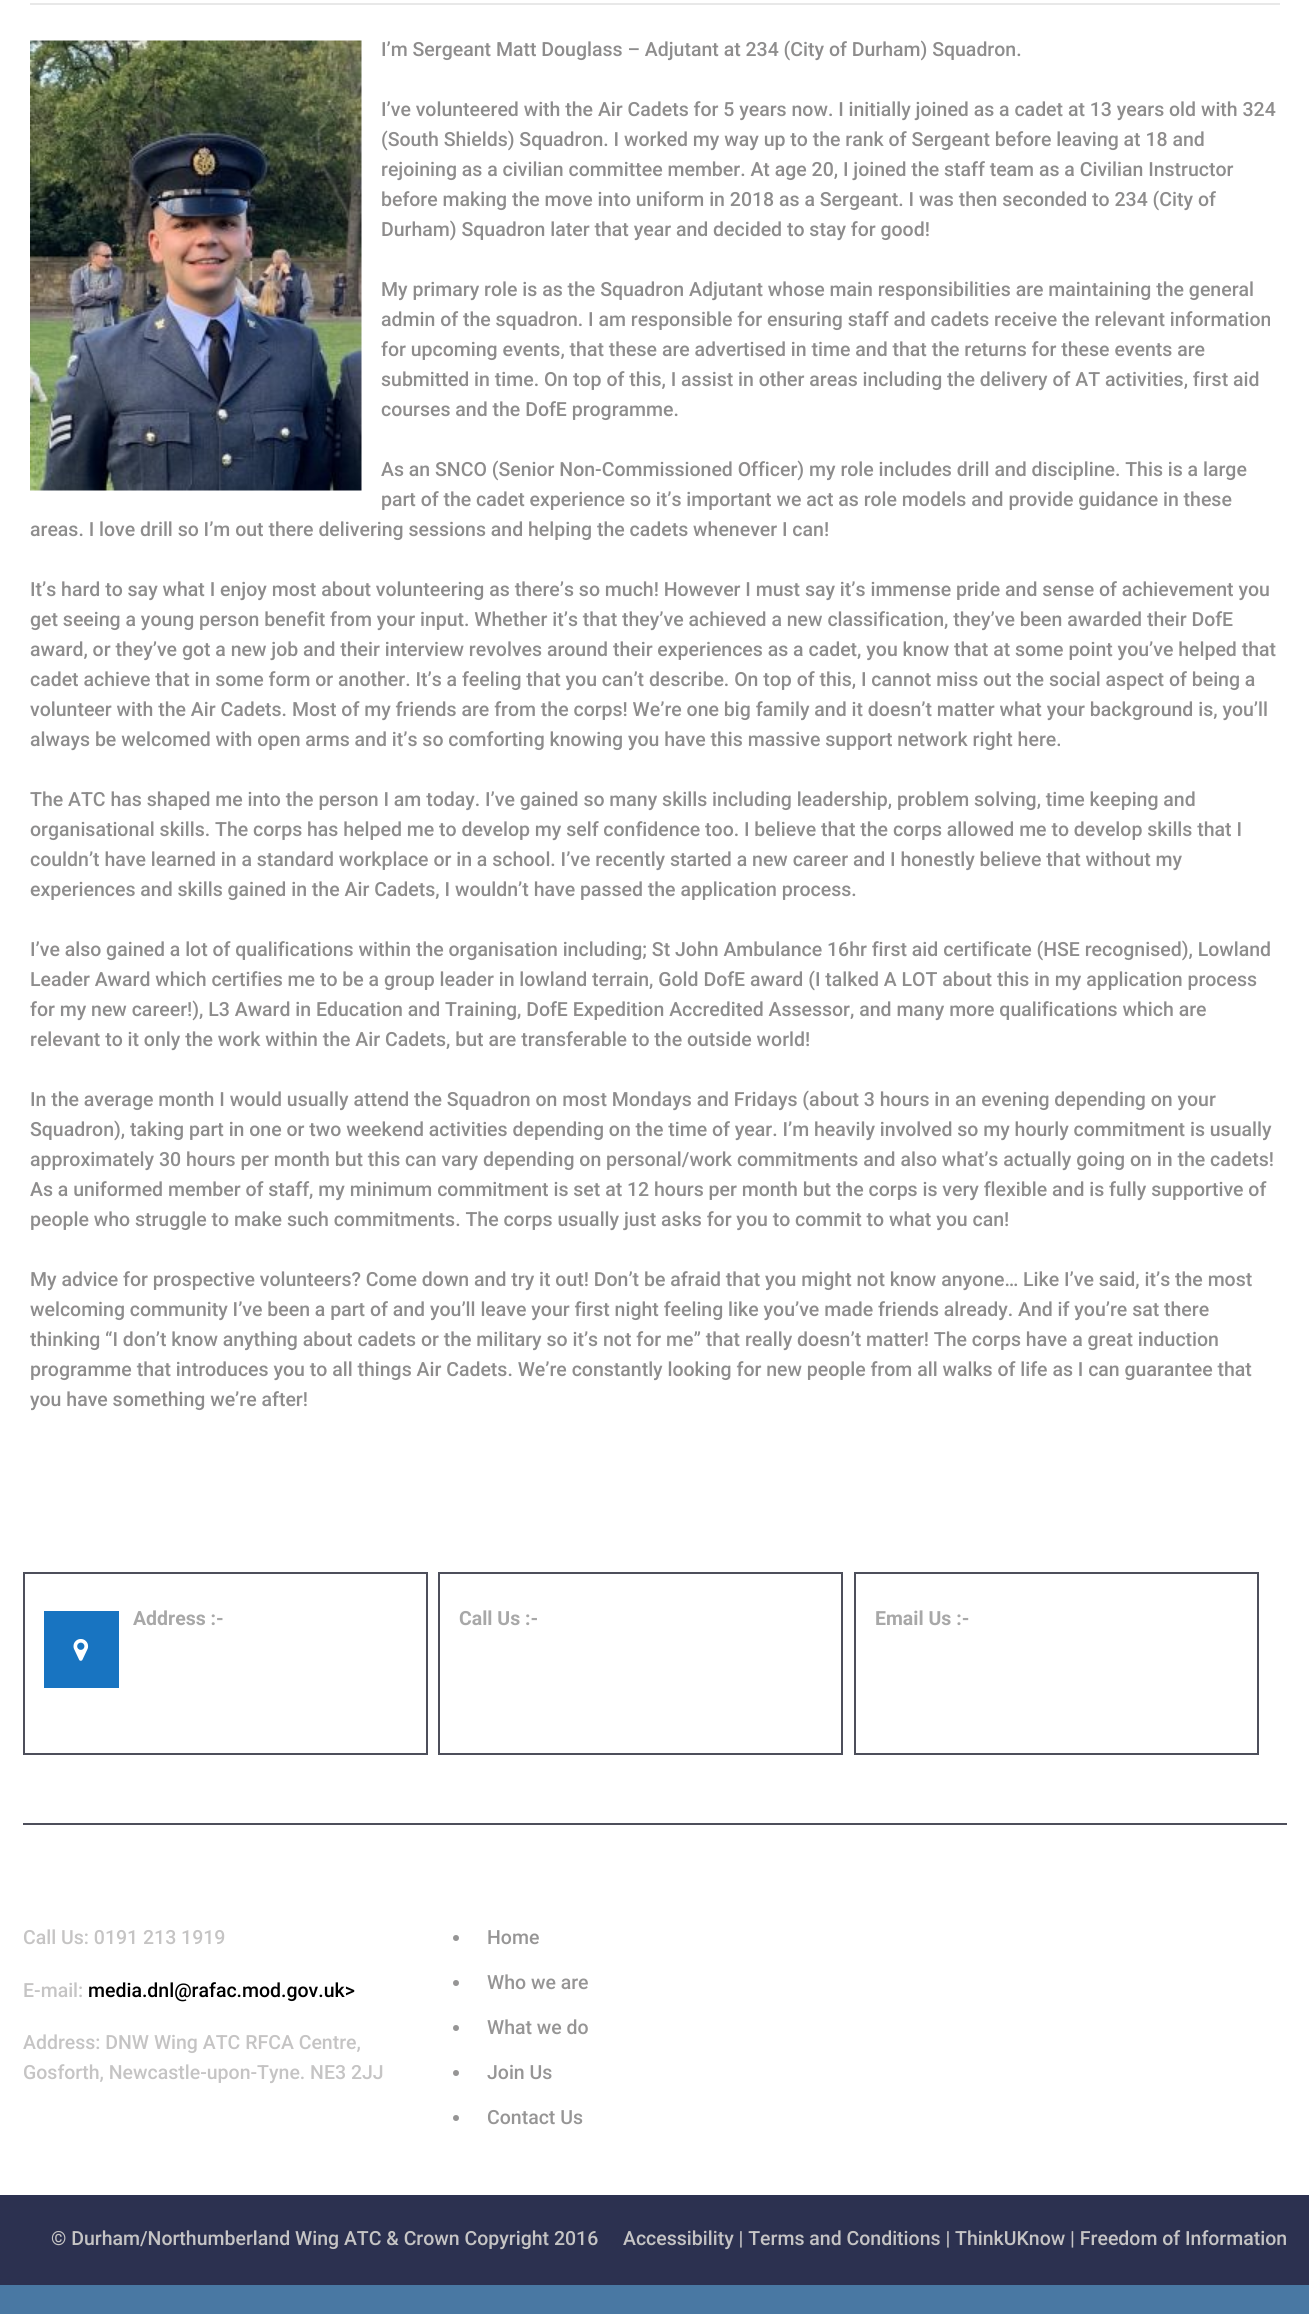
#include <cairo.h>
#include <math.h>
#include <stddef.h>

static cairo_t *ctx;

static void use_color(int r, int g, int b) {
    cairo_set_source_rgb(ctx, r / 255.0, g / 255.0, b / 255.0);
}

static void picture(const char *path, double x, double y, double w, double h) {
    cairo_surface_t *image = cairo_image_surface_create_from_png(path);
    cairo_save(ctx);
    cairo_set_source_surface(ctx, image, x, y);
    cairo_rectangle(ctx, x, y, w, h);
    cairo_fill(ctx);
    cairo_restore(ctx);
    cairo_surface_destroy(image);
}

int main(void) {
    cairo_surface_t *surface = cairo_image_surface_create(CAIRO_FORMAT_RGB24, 1309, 2314);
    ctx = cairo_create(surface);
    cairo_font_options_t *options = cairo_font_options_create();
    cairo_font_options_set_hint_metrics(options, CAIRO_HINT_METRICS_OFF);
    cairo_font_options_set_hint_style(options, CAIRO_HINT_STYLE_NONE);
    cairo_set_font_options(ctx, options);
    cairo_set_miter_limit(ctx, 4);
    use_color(73, 120, 163);
    cairo_paint(ctx);
    use_color(255, 255, 255);
    cairo_rectangle(ctx, 0, 0, 1309, 2195);
    cairo_fill(ctx);
    use_color(232, 232, 232);
    cairo_rectangle(ctx, 30, 3, 1250, 2);
    cairo_fill(ctx);
    picture("img1.png", 30, 40, 332, 451);
    cairo_select_font_face(ctx, "Roboto Medium", CAIRO_FONT_SLANT_NORMAL, CAIRO_FONT_WEIGHT_NORMAL);
    cairo_set_font_size(ctx, 19.5);
    use_color(142, 141, 141);
    cairo_move_to(ctx, 381, 56);
    cairo_show_text(ctx, "I’m Sergeant Matt Douglass – Adjutant at 234 (City of Durham) Squadron.");
    cairo_move_to(ctx, 381, 116);
    cairo_show_text(ctx, "I’ve volunteered with the Air Cadets for 5 years now. I initially joined as a cadet at 13 years old with 324");
    cairo_move_to(ctx, 381, 146);
    cairo_show_text(ctx, "(South Shields) Squadron. I worked my way up to the rank of Sergeant before leaving at 18 and");
    cairo_move_to(ctx, 381, 176);
    cairo_show_text(ctx, "rejoining as a civilian committee member. At age 20, I joined the staff team as a Civilian Instructor");
    cairo_move_to(ctx, 381, 206);
    cairo_show_text(ctx, "before making the move into uniform in 2018 as a Sergeant. I was then seconded to 234 (City of");
    cairo_move_to(ctx, 381, 236);
    cairo_show_text(ctx, "Durham) Squadron later that year and decided to stay for good!");
    cairo_move_to(ctx, 381, 296);
    cairo_show_text(ctx, "My primary role is as the Squadron Adjutant whose main responsibilities are maintaining the general");
    cairo_move_to(ctx, 381, 326);
    cairo_show_text(ctx, "admin of the squadron. I am responsible for ensuring staff and cadets receive the relevant information");
    cairo_move_to(ctx, 381, 356);
    cairo_show_text(ctx, "for upcoming events, that these are advertised in time and that the returns for these events are");
    cairo_move_to(ctx, 381, 386);
    cairo_show_text(ctx, "submitted in time. On top of this, I assist in other areas including the delivery of AT activities, first aid");
    cairo_move_to(ctx, 381, 416);
    cairo_show_text(ctx, "courses and the DofE programme.");
    cairo_move_to(ctx, 381, 476);
    cairo_show_text(ctx, "As an SNCO (Senior Non-Commissioned Officer) my role includes drill and discipline. This is a large");
    cairo_move_to(ctx, 381, 506);
    cairo_show_text(ctx, "part of the cadet experience so it’s important we act as role models and provide guidance in these");
    cairo_move_to(ctx, 30, 536);
    cairo_show_text(ctx, "areas. I love drill so I’m out there delivering sessions and helping the cadets whenever I can!");
    cairo_move_to(ctx, 30, 596);
    cairo_show_text(ctx, "It’s hard to say what I enjoy most about volunteering as there’s so much! However I must say it’s immense pride and sense of achievement you");
    cairo_move_to(ctx, 30, 626);
    cairo_show_text(ctx, "get seeing a young person benefit from your input. Whether it’s that they’ve achieved a new classification, they’ve been awarded their DofE");
    cairo_move_to(ctx, 30, 656);
    cairo_show_text(ctx, "award, or they’ve got a new job and their interview revolves around their experiences as a cadet, you know that at some point you’ve helped that");
    cairo_move_to(ctx, 30, 686);
    cairo_show_text(ctx, "cadet achieve that in some form or another. It’s a feeling that you can’t describe. On top of this, I cannot miss out the social aspect of being a");
    cairo_move_to(ctx, 30, 716);
    cairo_show_text(ctx, "volunteer with the Air Cadets. Most of my friends are from the corps! We’re one big family and it doesn’t matter what your background is, you’ll");
    cairo_move_to(ctx, 30, 746);
    cairo_show_text(ctx, "always be welcomed with open arms and it’s so comforting knowing you have this massive support network right here.");
    cairo_move_to(ctx, 30, 806);
    cairo_show_text(ctx, "The ATC has shaped me into the person I am today. I’ve gained so many skills including leadership, problem solving, time keeping and");
    cairo_move_to(ctx, 30, 836);
    cairo_show_text(ctx, "organisational skills. The corps has helped me to develop my self confidence too. I believe that the corps allowed me to develop skills that I");
    cairo_move_to(ctx, 30, 866);
    cairo_show_text(ctx, "couldn’t have learned in a standard workplace or in a school. I’ve recently started a new career and I honestly believe that without my");
    cairo_move_to(ctx, 30, 896);
    cairo_show_text(ctx, "experiences and skills gained in the Air Cadets, I wouldn’t have passed the application process.");
    cairo_move_to(ctx, 30, 956);
    cairo_show_text(ctx, "I’ve also gained a lot of qualifications within the organisation including; St John Ambulance 16hr first aid certificate (HSE recognised), Lowland");
    cairo_move_to(ctx, 30, 986);
    cairo_show_text(ctx, "Leader Award which certifies me to be a group leader in lowland terrain, Gold DofE award (I talked A LOT about this in my application process");
    cairo_move_to(ctx, 30, 1016);
    cairo_show_text(ctx, "for my new career!), L3 Award in Education and Training, DofE Expedition Accredited Assessor, and many more qualifications which are");
    cairo_move_to(ctx, 30, 1046);
    cairo_show_text(ctx, "relevant to it only the work within the Air Cadets, but are transferable to the outside world!");
    cairo_move_to(ctx, 30, 1106);
    cairo_show_text(ctx, "In the average month I would usually attend the Squadron on most Mondays and Fridays (about 3 hours in an evening depending on your");
    cairo_move_to(ctx, 30, 1136);
    cairo_show_text(ctx, "Squadron), taking part in one or two weekend activities depending on the time of year. I’m heavily involved so my hourly commitment is usually");
    cairo_move_to(ctx, 30, 1166);
    cairo_show_text(ctx, "approximately 30 hours per month but this can vary depending on personal/work commitments and also what’s actually going on in the cadets!");
    cairo_move_to(ctx, 30, 1196);
    cairo_show_text(ctx, "As a uniformed member of staff, my minimum commitment is set at 12 hours per month but the corps is very flexible and is fully supportive of");
    cairo_move_to(ctx, 30, 1226);
    cairo_show_text(ctx, "people who struggle to make such commitments. The corps usually just asks for you to commit to what you can!");
    cairo_move_to(ctx, 30, 1286);
    cairo_show_text(ctx, "My advice for prospective volunteers? Come down and try it out! Don’t be afraid that you might not know anyone… Like I’ve said, it’s the most");
    cairo_move_to(ctx, 30, 1316);
    cairo_show_text(ctx, "welcoming community I’ve been a part of and you’ll leave your first night feeling like you’ve made friends already. And if you’re sat there");
    cairo_move_to(ctx, 30, 1346);
    cairo_show_text(ctx, "thinking “I don’t know anything about cadets or the military so it’s not for me” that really doesn’t matter! The corps have a great induction");
    cairo_move_to(ctx, 30, 1376);
    cairo_show_text(ctx, "programme that introduces you to all things Air Cadets. We’re constantly looking for new people from all walks of life as I can guarantee that");
    cairo_move_to(ctx, 30, 1406);
    cairo_show_text(ctx, "you have something we’re after!");
    use_color(77, 79, 91);
    cairo_rectangle(ctx, 23, 1823, 1264, 2);
    cairo_fill(ctx);
    cairo_rectangle(ctx, 24, 1573, 403, 181);
    cairo_stroke(ctx);
    use_color(24, 116, 193);
    cairo_rectangle(ctx, 44, 1611, 75, 77);
    cairo_fill(ctx);
    picture("img2.png", 73, 1639, 16, 22);
    cairo_select_font_face(ctx, "Roboto", CAIRO_FONT_SLANT_NORMAL, CAIRO_FONT_WEIGHT_BOLD);
    use_color(168, 168, 168);
    cairo_move_to(ctx, 133, 1625);
    cairo_show_text(ctx, "Address :-");
    cairo_rectangle(ctx, 439, 1573, 403, 181);
    use_color(77, 79, 91);
    cairo_stroke(ctx);
    use_color(168, 168, 168);
    cairo_move_to(ctx, 459, 1625);
    cairo_show_text(ctx, "Call Us :-");
    cairo_rectangle(ctx, 855, 1573, 403, 181);
    use_color(77, 79, 91);
    cairo_stroke(ctx);
    use_color(168, 168, 168);
    cairo_move_to(ctx, 875, 1625);
    cairo_show_text(ctx, "Email Us :-");
    cairo_select_font_face(ctx, "Roboto Medium", CAIRO_FONT_SLANT_NORMAL, CAIRO_FONT_WEIGHT_NORMAL);
    use_color(197, 196, 196);
    cairo_move_to(ctx, 23, 1944);
    cairo_show_text(ctx, "Call Us: 0191 213 1919");
    cairo_move_to(ctx, 23, 1997);
    cairo_show_text(ctx, "E-mail:");
    use_color(0, 0, 0);
    cairo_move_to(ctx, 88, 1997);
    cairo_show_text(ctx, "media.dnl@rafac.mod.gov.uk>");
    use_color(197, 196, 196);
    cairo_move_to(ctx, 23, 2049);
    cairo_show_text(ctx, "Address: DNW Wing ATC RFCA Centre,");
    cairo_move_to(ctx, 23, 2079);
    cairo_show_text(ctx, "Gosforth, Newcastle-upon-Tyne. NE3 2JJ");
    use_color(150, 149, 149);
    cairo_new_path(ctx);
    cairo_arc(ctx, 456, 1938, 3, 0, 2 * M_PI);
    cairo_fill(ctx);
    cairo_move_to(ctx, 487, 1944);
    cairo_show_text(ctx, "Home");
    cairo_new_path(ctx);
    cairo_arc(ctx, 456, 1983, 3, 0, 2 * M_PI);
    cairo_fill(ctx);
    cairo_move_to(ctx, 487, 1989);
    cairo_show_text(ctx, "Who we are");
    cairo_new_path(ctx);
    cairo_arc(ctx, 456, 2028, 3, 0, 2 * M_PI);
    cairo_fill(ctx);
    cairo_move_to(ctx, 487, 2034);
    cairo_show_text(ctx, "What we do");
    cairo_new_path(ctx);
    cairo_arc(ctx, 456, 2073, 3, 0, 2 * M_PI);
    cairo_fill(ctx);
    cairo_move_to(ctx, 487, 2079);
    cairo_show_text(ctx, "Join Us");
    cairo_new_path(ctx);
    cairo_arc(ctx, 456, 2118, 3, 0, 2 * M_PI);
    cairo_fill(ctx);
    cairo_move_to(ctx, 487, 2124);
    cairo_show_text(ctx, "Contact Us");
    use_color(44, 49, 80);
    cairo_rectangle(ctx, 0, 2195, 1309, 90);
    cairo_fill(ctx);
    use_color(197, 196, 196);
    cairo_move_to(ctx, 51, 2245);
    cairo_show_text(ctx, "© Durham/Northumberland Wing ATC & Crown Copyright 2016");
    cairo_move_to(ctx, 623, 2245);
    cairo_show_text(ctx, "Accessibility | Terms and Conditions | ThinkUKnow | Freedom of Information");
    cairo_surface_write_to_png(surface, "result.png");
    cairo_font_options_destroy(options);
    cairo_destroy(ctx);
    cairo_surface_destroy(surface);
    return 0;
}
